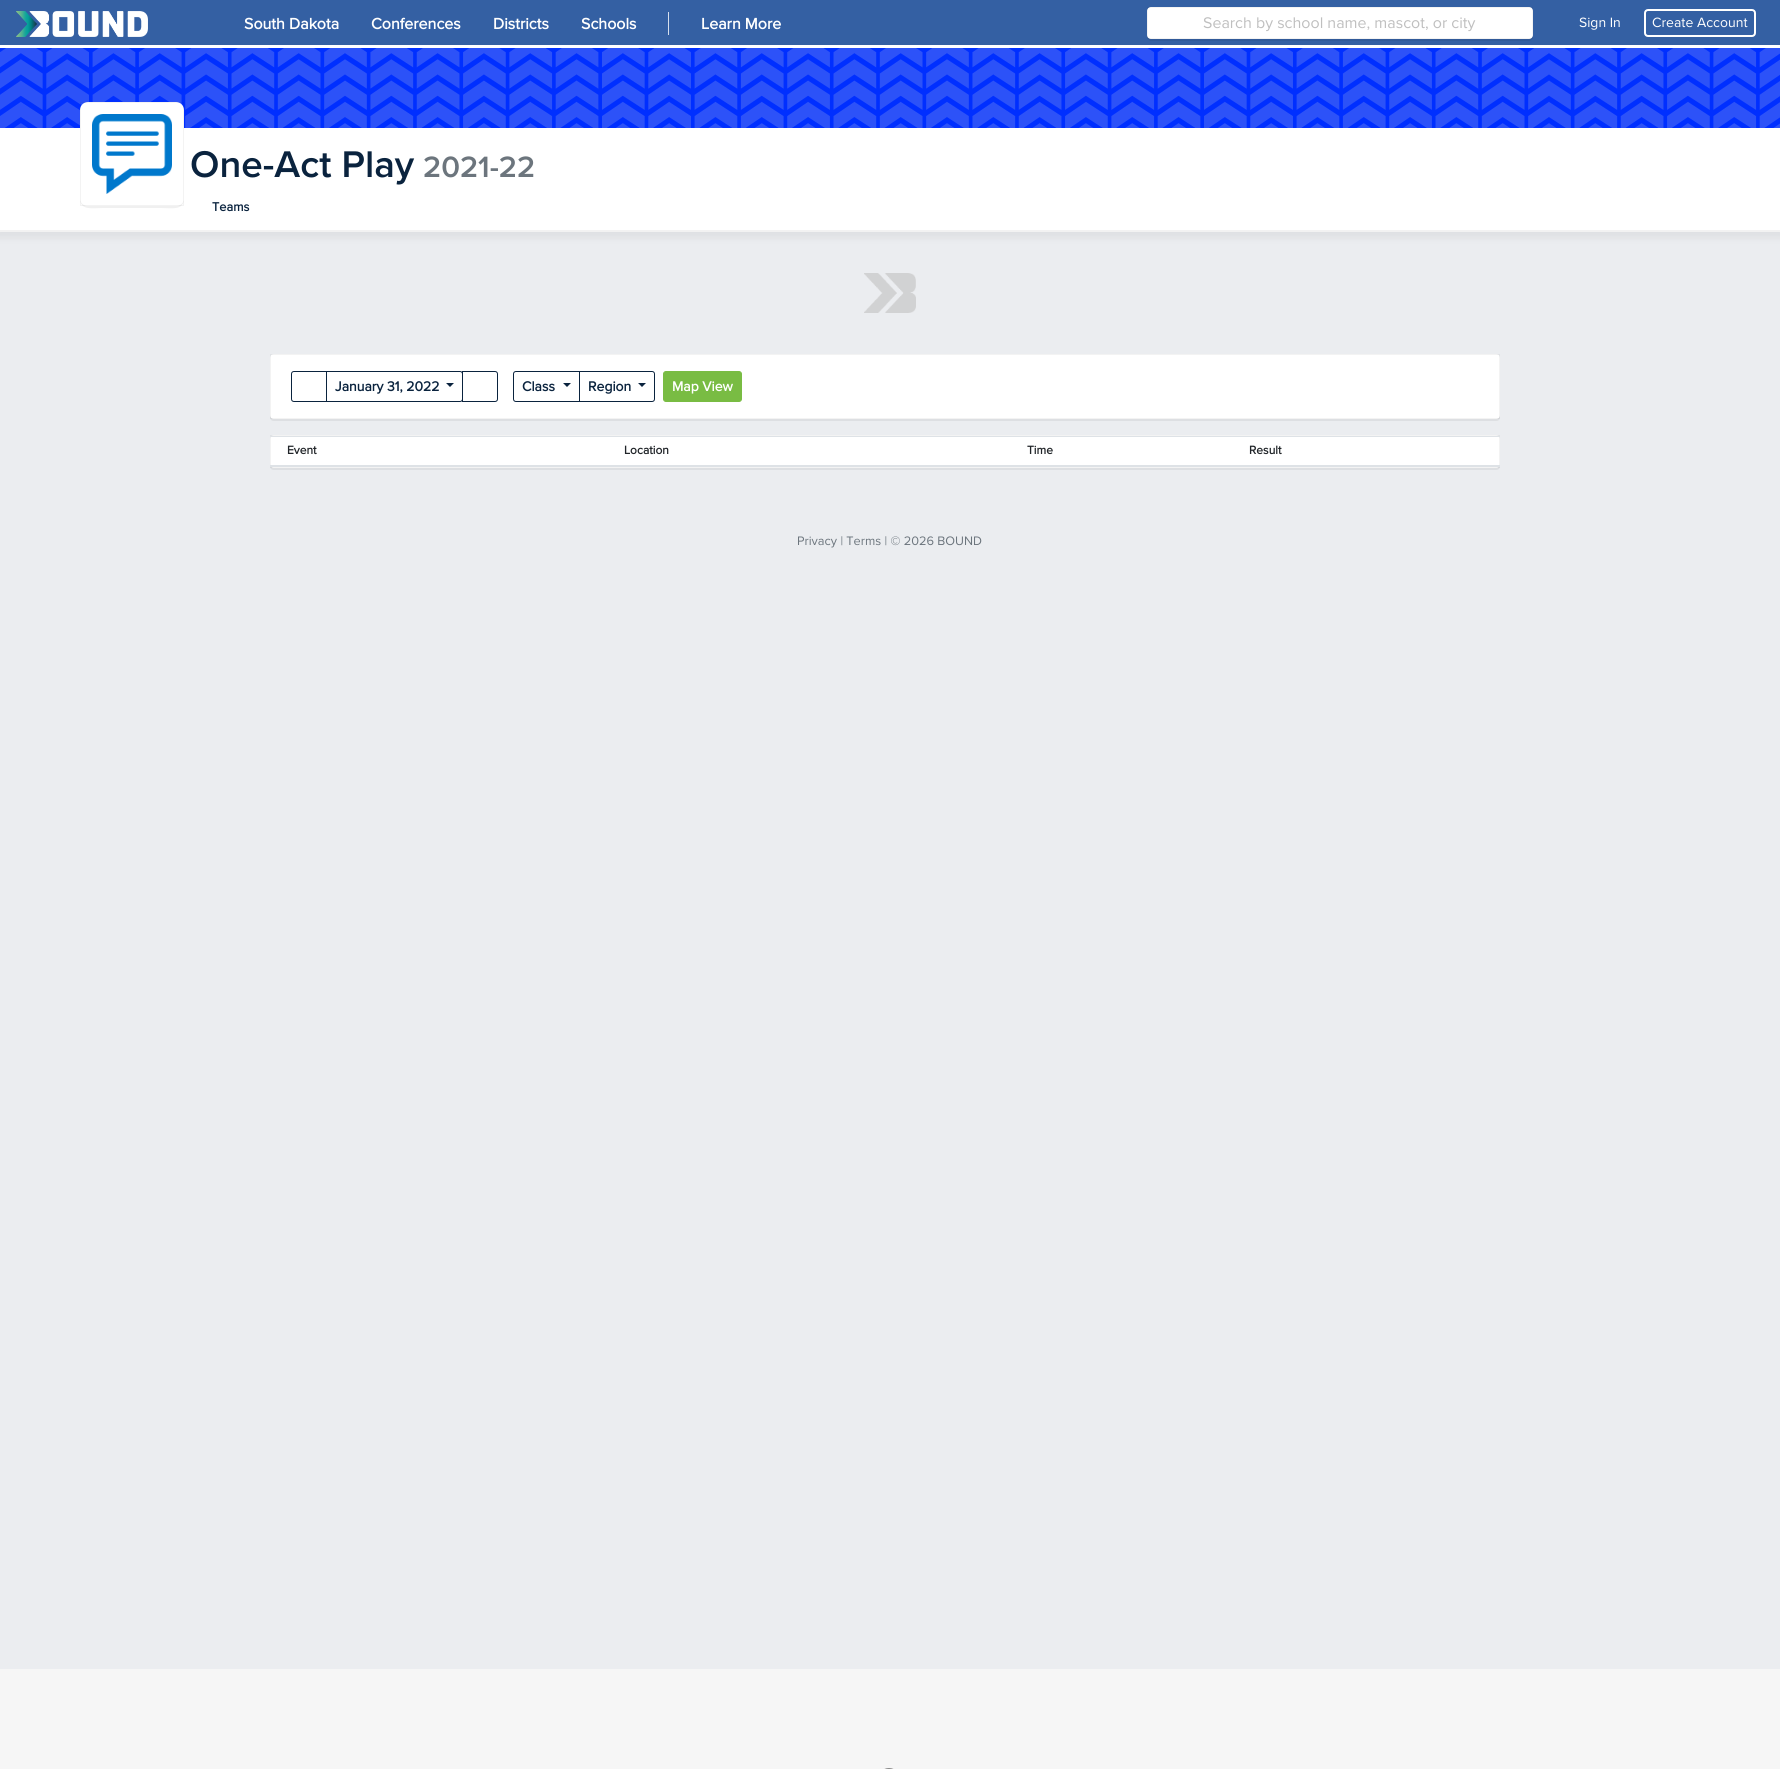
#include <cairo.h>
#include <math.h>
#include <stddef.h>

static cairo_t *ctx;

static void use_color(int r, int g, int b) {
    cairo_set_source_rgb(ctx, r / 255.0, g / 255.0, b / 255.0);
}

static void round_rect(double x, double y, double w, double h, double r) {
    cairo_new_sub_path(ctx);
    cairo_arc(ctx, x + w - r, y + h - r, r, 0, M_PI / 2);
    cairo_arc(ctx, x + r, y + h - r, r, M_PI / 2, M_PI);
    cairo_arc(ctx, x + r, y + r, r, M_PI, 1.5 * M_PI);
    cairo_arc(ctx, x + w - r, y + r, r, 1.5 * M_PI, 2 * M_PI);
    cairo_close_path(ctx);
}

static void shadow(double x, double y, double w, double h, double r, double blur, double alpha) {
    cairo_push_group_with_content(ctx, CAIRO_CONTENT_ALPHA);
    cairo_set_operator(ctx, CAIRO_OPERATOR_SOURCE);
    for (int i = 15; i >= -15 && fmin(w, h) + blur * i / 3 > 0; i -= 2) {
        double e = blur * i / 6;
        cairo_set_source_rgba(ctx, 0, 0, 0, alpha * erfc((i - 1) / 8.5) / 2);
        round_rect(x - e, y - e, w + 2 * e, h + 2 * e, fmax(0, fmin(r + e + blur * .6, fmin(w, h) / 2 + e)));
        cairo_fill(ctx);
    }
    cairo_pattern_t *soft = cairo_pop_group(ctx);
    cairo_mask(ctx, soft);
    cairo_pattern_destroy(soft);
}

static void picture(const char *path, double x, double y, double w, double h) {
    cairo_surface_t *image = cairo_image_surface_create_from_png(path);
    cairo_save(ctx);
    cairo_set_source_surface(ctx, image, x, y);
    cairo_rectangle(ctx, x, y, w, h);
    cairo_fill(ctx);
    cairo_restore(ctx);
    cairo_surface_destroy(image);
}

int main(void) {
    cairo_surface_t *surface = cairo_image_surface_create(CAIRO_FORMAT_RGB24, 1780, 1769);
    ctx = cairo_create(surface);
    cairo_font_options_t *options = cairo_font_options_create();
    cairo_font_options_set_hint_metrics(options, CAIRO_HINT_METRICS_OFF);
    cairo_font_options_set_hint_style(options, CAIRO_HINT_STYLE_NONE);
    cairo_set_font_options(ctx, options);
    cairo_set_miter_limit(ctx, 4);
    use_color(235, 237, 240);
    cairo_paint(ctx);
    use_color(0, 0, 0);
    shadow(-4, 46, 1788, 192, 0, 4, 0.06);
    use_color(52, 96, 163);
    cairo_rectangle(ctx, 0, 0, 1780, 45);
    cairo_fill(ctx);
    use_color(255, 255, 255);
    cairo_rectangle(ctx, 0, 45, 1780, 3);
    cairo_fill(ctx);
    picture("img1.png", 16, 11, 132, 26);
    cairo_select_font_face(ctx, "Proxima Nova", CAIRO_FONT_SLANT_NORMAL, CAIRO_FONT_WEIGHT_BOLD);
    cairo_set_font_size(ctx, 16);
    cairo_move_to(ctx, 244, 29);
    cairo_show_text(ctx, "South Dakota");
    cairo_move_to(ctx, 371, 29);
    cairo_show_text(ctx, "Conferences");
    cairo_move_to(ctx, 493, 29);
    cairo_show_text(ctx, "Districts");
    cairo_move_to(ctx, 581, 29);
    cairo_show_text(ctx, "Schools");
    use_color(214, 223, 237);
    cairo_rectangle(ctx, 668, 12, 1, 23);
    cairo_fill(ctx);
    use_color(255, 255, 255);
    cairo_move_to(ctx, 701, 29);
    cairo_show_text(ctx, "Learn More");
    use_color(49, 90, 153);
    cairo_new_path(ctx);
    cairo_move_to(ctx, 1147, 35);
    cairo_line_to(ctx, 1147, 37);
    cairo_curve_to(ctx, 1147, 39, 1149, 41, 1151, 41);
    cairo_line_to(ctx, 1529, 41);
    cairo_curve_to(ctx, 1531, 41, 1533, 39, 1533, 37);
    cairo_line_to(ctx, 1533, 35);
    cairo_curve_to(ctx, 1533, 37, 1531, 39, 1529, 39);
    cairo_line_to(ctx, 1151, 39);
    cairo_curve_to(ctx, 1149, 39, 1147, 37, 1147, 35);
    cairo_close_path(ctx);
    cairo_fill(ctx);
    use_color(255, 255, 255);
    round_rect(1147, 7, 386, 32, 4);
    cairo_fill(ctx);
    cairo_rectangle(ctx, 1147.5, 7.5, 385, 31);
    cairo_set_source_rgba(ctx, 0, 0, 0, 0.05);
    cairo_set_line_width(ctx, 1);
    cairo_stroke(ctx);
    cairo_select_font_face(ctx, "Proxima Nova", CAIRO_FONT_SLANT_NORMAL, CAIRO_FONT_WEIGHT_NORMAL);
    use_color(191, 191, 191);
    cairo_move_to(ctx, 1203, 28);
    cairo_show_text(ctx, "Search by school name, mascot, or city");
    cairo_set_font_size(ctx, 14);
    use_color(255, 255, 255);
    cairo_move_to(ctx, 1579, 27);
    cairo_show_text(ctx, "Sign In");
    round_rect(1645, 10, 110, 26, 3);
    cairo_set_line_width(ctx, 2);
    cairo_stroke(ctx);
    cairo_move_to(ctx, 1652, 27);
    cairo_show_text(ctx, "Create Account");
    cairo_rectangle(ctx, 0, 128, 1780, 102);
    cairo_fill(ctx);
    use_color(242, 242, 242);
    cairo_rectangle(ctx, 0, 230, 1780, 2);
    cairo_fill(ctx);
    use_color(0, 47, 255);
    cairo_rectangle(ctx, 0, 48, 1780, 80);
    cairo_fill(ctx);
    picture("img2.png", 0, 48, 1780, 80);
    use_color(240, 240, 240);
    cairo_new_path(ctx);
    cairo_move_to(ctx, 80, 198);
    cairo_curve_to(ctx, 80, 211, 92, 208, 103, 208);
    cairo_line_to(ctx, 161, 208);
    cairo_curve_to(ctx, 172, 208, 184, 211, 184, 198);
    cairo_curve_to(ctx, 184, 202, 180, 206, 176, 206);
    cairo_line_to(ctx, 88, 206);
    cairo_curve_to(ctx, 84, 206, 80, 202, 80, 198);
    cairo_close_path(ctx);
    cairo_fill(ctx);
    use_color(255, 255, 255);
    round_rect(80, 102, 104, 104, 8);
    cairo_fill(ctx);
    cairo_rectangle(ctx, 80.5, 102.5, 103, 103);
    cairo_set_source_rgba(ctx, 0, 0, 0, 0.05);
    cairo_set_line_width(ctx, 1);
    cairo_stroke(ctx);
    picture("img3.png", 92, 114, 80, 80);
    cairo_select_font_face(ctx, "Proxima Nova SemiBold", CAIRO_FONT_SLANT_NORMAL, CAIRO_FONT_WEIGHT_NORMAL);
    cairo_set_font_size(ctx, 38.5);
    use_color(10, 35, 62);
    cairo_move_to(ctx, 190, 177);
    cairo_show_text(ctx, "One-Act Play");
    cairo_set_font_size(ctx, 30.5);
    use_color(108, 117, 125);
    cairo_move_to(ctx, 423, 177);
    cairo_show_text(ctx, "2021-22");
    cairo_select_font_face(ctx, "Proxima Nova", CAIRO_FONT_SLANT_NORMAL, CAIRO_FONT_WEIGHT_BOLD);
    cairo_set_font_size(ctx, 12.75);
    use_color(10, 35, 62);
    cairo_move_to(ctx, 212, 211);
    cairo_show_text(ctx, "Teams");
    picture("img4.png", 864, 273, 52, 40);
    use_color(221, 223, 226);
    cairo_new_path(ctx);
    cairo_move_to(ctx, 270, 415);
    cairo_curve_to(ctx, 270, 418, 270, 421, 274, 421);
    cairo_line_to(ctx, 1496, 421);
    cairo_curve_to(ctx, 1500, 421, 1500, 418, 1500, 415);
    cairo_curve_to(ctx, 1500, 417, 1498, 419, 1496, 419);
    cairo_line_to(ctx, 274, 419);
    cairo_curve_to(ctx, 272, 419, 270, 417, 270, 415);
    cairo_close_path(ctx);
    cairo_fill(ctx);
    use_color(255, 255, 255);
    round_rect(270, 354, 1230, 65, 4);
    cairo_fill(ctx);
    cairo_rectangle(ctx, 270.5, 354.5, 1229, 64);
    cairo_set_source_rgba(ctx, 0, 0, 0, 0.05);
    cairo_stroke(ctx);
    use_color(255, 255, 255);
    cairo_new_path(ctx);
    cairo_move_to(ctx, 274, 355);
    cairo_line_to(ctx, 1496, 355);
    cairo_curve_to(ctx, 1497.5, 355, 1499, 356.5, 1499, 358);
    cairo_line_to(ctx, 1499, 418);
    cairo_line_to(ctx, 271, 418);
    cairo_line_to(ctx, 271, 358);
    cairo_curve_to(ctx, 271, 356.5, 272.5, 355, 274, 355);
    cairo_close_path(ctx);
    cairo_fill(ctx);
    cairo_new_path(ctx);
    cairo_move_to(ctx, 294, 371.5);
    cairo_line_to(ctx, 326.5, 371.5);
    cairo_line_to(ctx, 326.5, 401.5);
    cairo_line_to(ctx, 294, 401.5);
    cairo_curve_to(ctx, 292.5, 401.5, 291.5, 400.5, 291.5, 399);
    cairo_line_to(ctx, 291.5, 374);
    cairo_curve_to(ctx, 291.5, 372.5, 292.5, 371.5, 294, 371.5);
    cairo_close_path(ctx);
    use_color(10, 35, 62);
    cairo_stroke(ctx);
    cairo_new_path(ctx);
    cairo_move_to(ctx, 326.5, 371.5);
    cairo_line_to(ctx, 460, 371.5);
    cairo_curve_to(ctx, 461.5, 371.5, 462.5, 372.5, 462.5, 374);
    cairo_line_to(ctx, 462.5, 399);
    cairo_curve_to(ctx, 462.5, 400.5, 461.5, 401.5, 460, 401.5);
    cairo_line_to(ctx, 326.5, 401.5);
    cairo_close_path(ctx);
    cairo_stroke(ctx);
    cairo_set_font_size(ctx, 14);
    cairo_move_to(ctx, 335, 391);
    cairo_show_text(ctx, "January 31, 2022");
    cairo_new_path(ctx);
    cairo_move_to(ctx, 446, 383);
    cairo_line_to(ctx, 454, 383);
    cairo_line_to(ctx, 450, 387);
    cairo_close_path(ctx);
    cairo_fill(ctx);
    cairo_new_path(ctx);
    cairo_move_to(ctx, 462.5, 371.5);
    cairo_line_to(ctx, 495, 371.5);
    cairo_curve_to(ctx, 496.5, 371.5, 497.5, 372.5, 497.5, 374);
    cairo_line_to(ctx, 497.5, 399);
    cairo_curve_to(ctx, 497.5, 400.5, 496.5, 401.5, 495, 401.5);
    cairo_line_to(ctx, 462.5, 401.5);
    cairo_close_path(ctx);
    cairo_stroke(ctx);
    cairo_new_path(ctx);
    cairo_move_to(ctx, 516, 371.5);
    cairo_line_to(ctx, 579.5, 371.5);
    cairo_line_to(ctx, 579.5, 401.5);
    cairo_line_to(ctx, 516, 401.5);
    cairo_curve_to(ctx, 514.5, 401.5, 513.5, 400.5, 513.5, 399);
    cairo_line_to(ctx, 513.5, 374);
    cairo_curve_to(ctx, 513.5, 372.5, 514.5, 371.5, 516, 371.5);
    cairo_close_path(ctx);
    cairo_stroke(ctx);
    cairo_move_to(ctx, 522, 391);
    cairo_show_text(ctx, "Class");
    cairo_new_path(ctx);
    cairo_move_to(ctx, 563, 383);
    cairo_line_to(ctx, 571, 383);
    cairo_line_to(ctx, 567, 387);
    cairo_close_path(ctx);
    cairo_fill(ctx);
    cairo_new_path(ctx);
    cairo_move_to(ctx, 579.5, 371.5);
    cairo_line_to(ctx, 652, 371.5);
    cairo_curve_to(ctx, 653.5, 371.5, 654.5, 372.5, 654.5, 374);
    cairo_line_to(ctx, 654.5, 399);
    cairo_curve_to(ctx, 654.5, 400.5, 653.5, 401.5, 652, 401.5);
    cairo_line_to(ctx, 579.5, 401.5);
    cairo_close_path(ctx);
    cairo_stroke(ctx);
    cairo_move_to(ctx, 588, 391);
    cairo_show_text(ctx, "Region");
    cairo_new_path(ctx);
    cairo_move_to(ctx, 638, 383);
    cairo_line_to(ctx, 646, 383);
    cairo_line_to(ctx, 642, 387);
    cairo_close_path(ctx);
    cairo_fill(ctx);
    use_color(121, 188, 67);
    round_rect(663.5, 371.5, 78, 30, 2.5);
    cairo_fill_preserve(ctx);
    cairo_stroke(ctx);
    use_color(255, 255, 255);
    cairo_move_to(ctx, 672, 391);
    cairo_show_text(ctx, "Map View");
    use_color(221, 223, 226);
    cairo_new_path(ctx);
    cairo_move_to(ctx, 270, 464);
    cairo_curve_to(ctx, 270, 467, 270, 470, 274, 470);
    cairo_line_to(ctx, 1496, 470);
    cairo_curve_to(ctx, 1500, 470, 1500, 467, 1500, 464);
    cairo_curve_to(ctx, 1500, 466, 1498, 468, 1496, 468);
    cairo_line_to(ctx, 274, 468);
    cairo_curve_to(ctx, 272, 468, 270, 466, 270, 464);
    cairo_close_path(ctx);
    cairo_fill(ctx);
    use_color(255, 255, 255);
    round_rect(270, 435, 1230, 33, 4);
    cairo_fill(ctx);
    cairo_rectangle(ctx, 270.5, 435.5, 1229, 32);
    cairo_set_source_rgba(ctx, 0, 0, 0, 0.05);
    cairo_stroke(ctx);
    use_color(255, 255, 255);
    cairo_rectangle(ctx, 271, 437, 1228, 1);
    cairo_fill(ctx);
    use_color(222, 226, 230);
    cairo_rectangle(ctx, 271, 436, 1229, 1);
    cairo_fill(ctx);
    cairo_rectangle(ctx, 270, 465, 1230, 2);
    cairo_fill(ctx);
    cairo_set_font_size(ctx, 12);
    use_color(33, 37, 41);
    cairo_move_to(ctx, 287, 454);
    cairo_show_text(ctx, "Event");
    cairo_move_to(ctx, 624, 454);
    cairo_show_text(ctx, "Location");
    cairo_move_to(ctx, 1027, 454);
    cairo_show_text(ctx, "Time");
    cairo_move_to(ctx, 1249, 454);
    cairo_show_text(ctx, "Result");
    cairo_select_font_face(ctx, "Proxima Nova", CAIRO_FONT_SLANT_NORMAL, CAIRO_FONT_WEIGHT_NORMAL);
    cairo_set_font_size(ctx, 12.75);
    use_color(108, 117, 125);
    cairo_move_to(ctx, 797, 545);
    cairo_show_text(ctx, "Privacy | Terms | © 2026 BOUND");
    use_color(246, 246, 246);
    cairo_rectangle(ctx, 0, 1669, 1780, 100);
    cairo_fill(ctx);
    round_rect(878.5, 1768.5, 21, 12, 10.5);
    use_color(136, 136, 136);
    cairo_stroke(ctx);
    cairo_surface_write_to_png(surface, "result.png");
    cairo_font_options_destroy(options);
    cairo_destroy(ctx);
    cairo_surface_destroy(surface);
    return 0;
}
